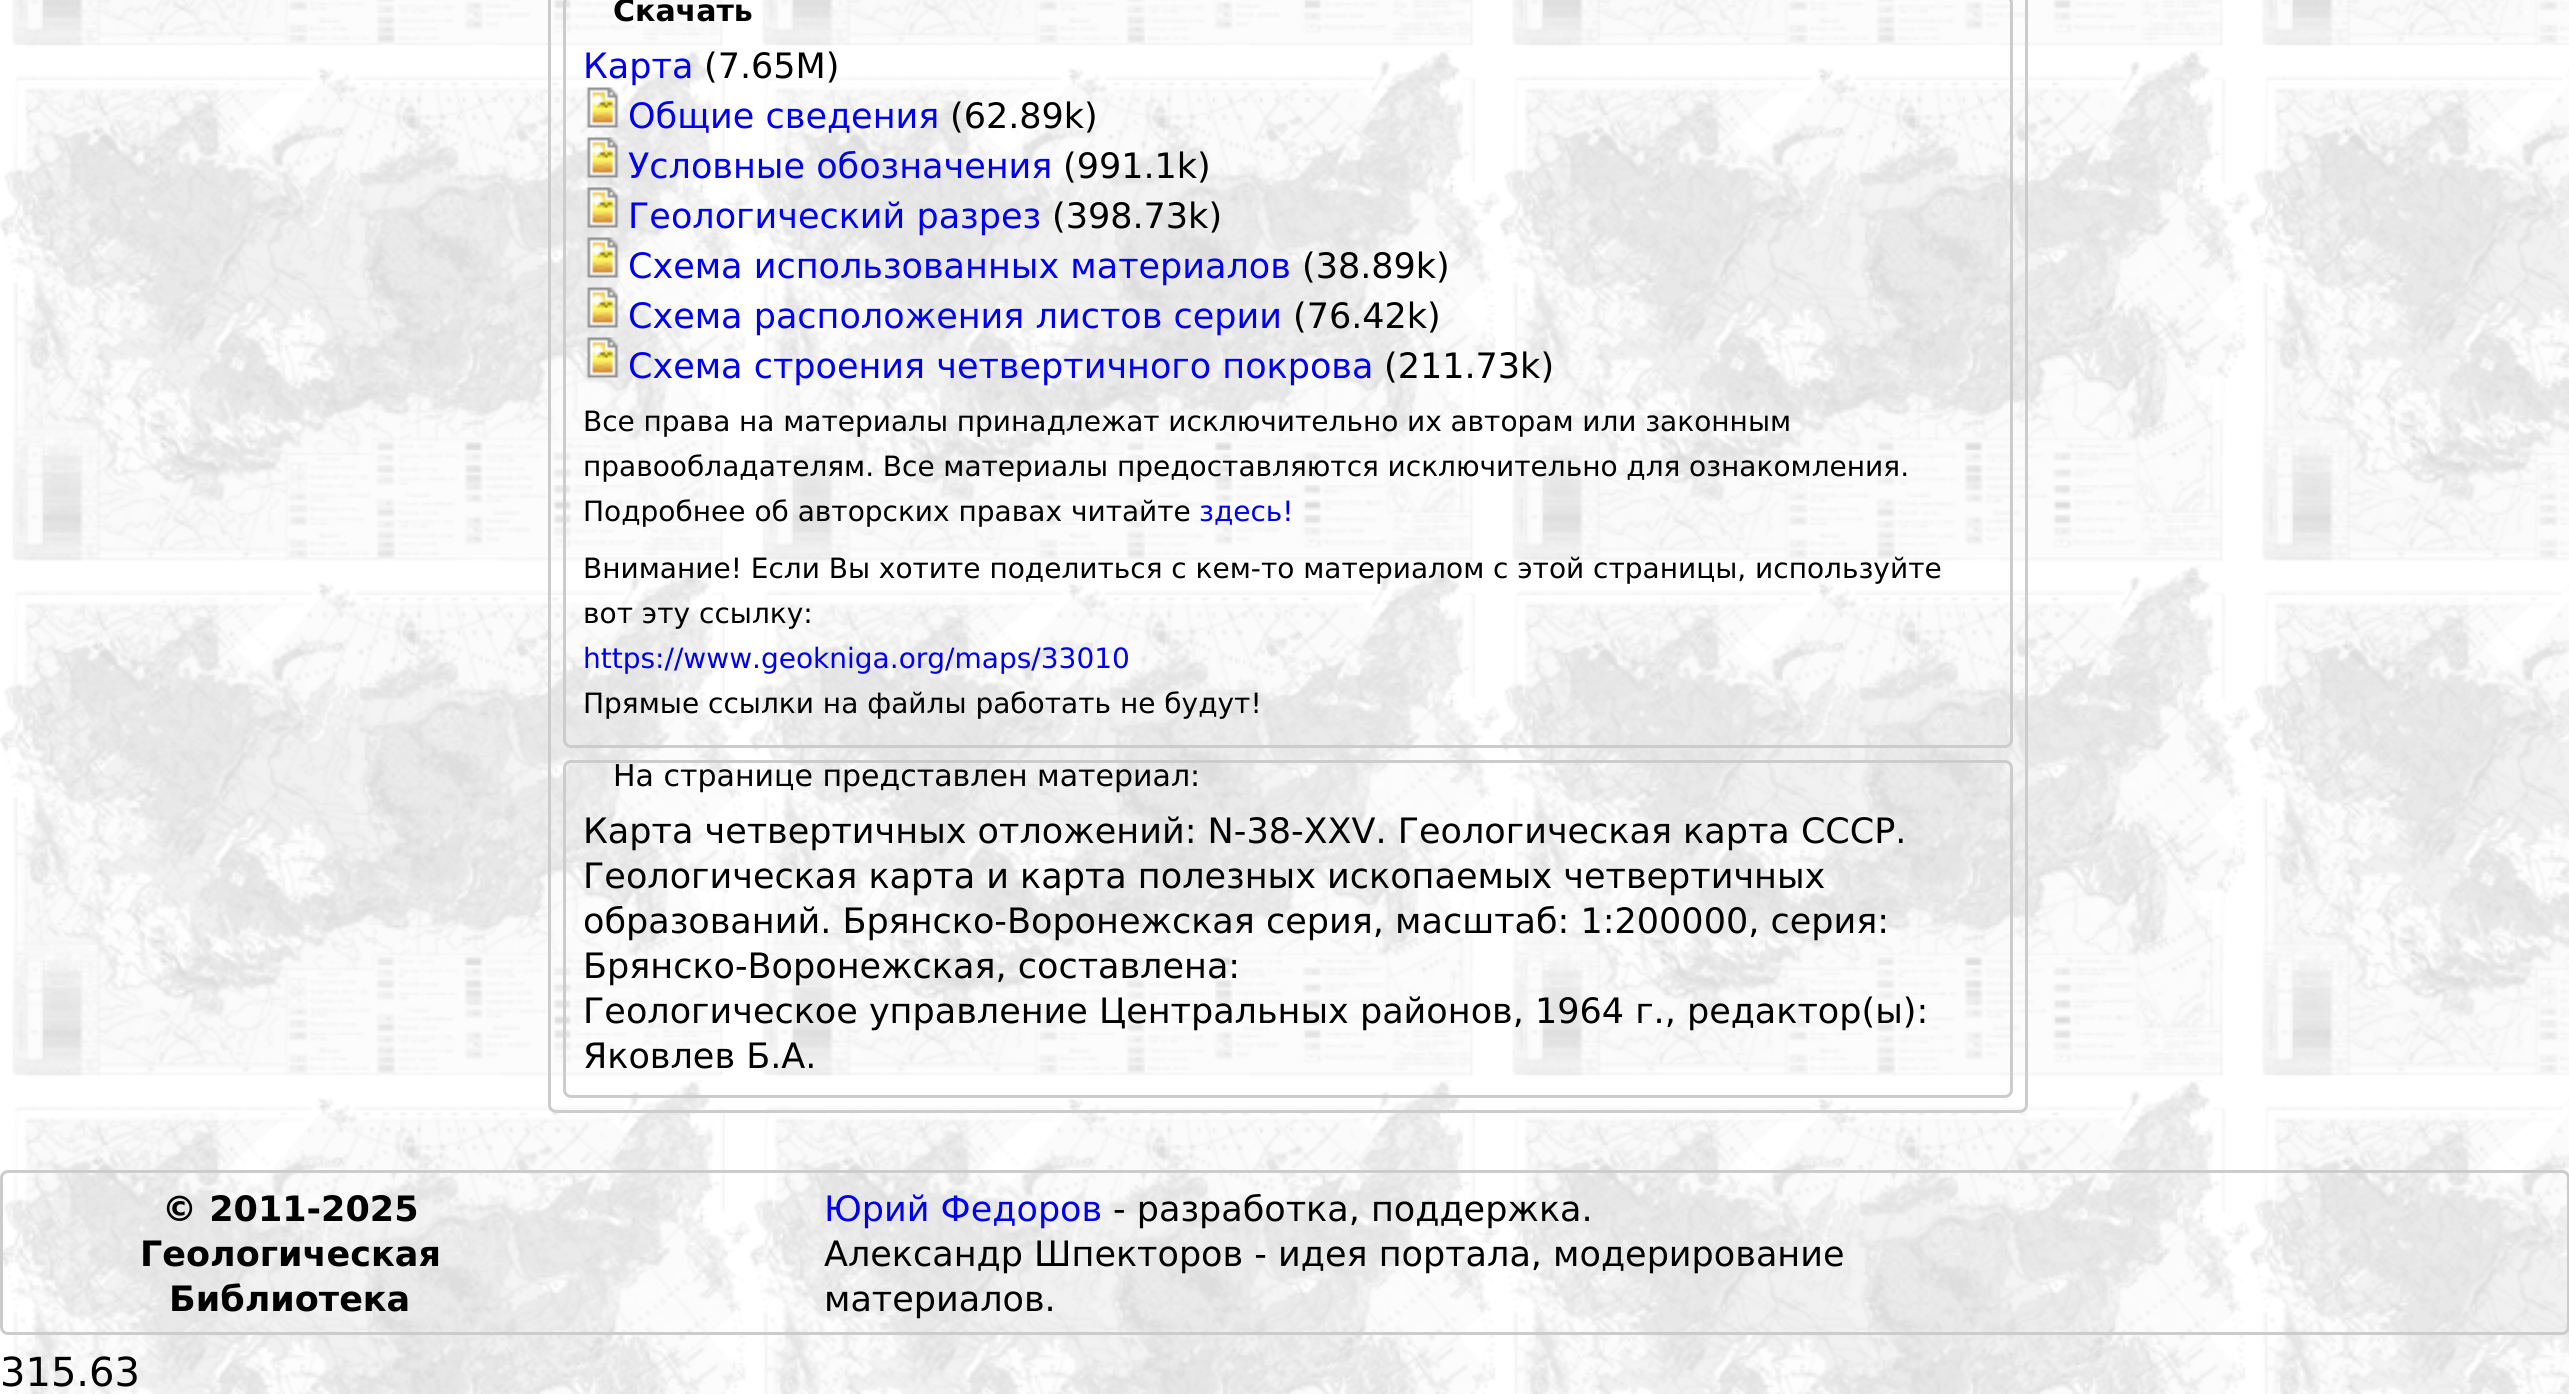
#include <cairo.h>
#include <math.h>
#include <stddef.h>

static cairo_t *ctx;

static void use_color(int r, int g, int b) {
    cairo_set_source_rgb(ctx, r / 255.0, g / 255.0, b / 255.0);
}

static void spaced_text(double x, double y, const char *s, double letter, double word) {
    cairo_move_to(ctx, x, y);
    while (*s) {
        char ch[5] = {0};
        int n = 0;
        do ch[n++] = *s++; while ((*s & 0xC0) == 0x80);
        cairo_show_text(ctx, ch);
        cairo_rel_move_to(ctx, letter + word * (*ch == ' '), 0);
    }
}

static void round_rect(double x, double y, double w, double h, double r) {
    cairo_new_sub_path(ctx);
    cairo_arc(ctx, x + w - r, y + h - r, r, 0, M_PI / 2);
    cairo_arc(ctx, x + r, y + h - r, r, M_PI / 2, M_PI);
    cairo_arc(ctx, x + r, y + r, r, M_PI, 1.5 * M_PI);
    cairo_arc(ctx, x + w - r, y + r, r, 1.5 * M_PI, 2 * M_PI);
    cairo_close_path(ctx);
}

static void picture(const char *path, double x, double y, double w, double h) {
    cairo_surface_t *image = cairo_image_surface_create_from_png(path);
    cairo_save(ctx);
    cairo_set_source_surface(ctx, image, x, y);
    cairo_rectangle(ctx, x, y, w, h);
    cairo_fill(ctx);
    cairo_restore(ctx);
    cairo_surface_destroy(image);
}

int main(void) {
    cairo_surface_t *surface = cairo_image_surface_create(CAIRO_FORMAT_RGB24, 2569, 1394);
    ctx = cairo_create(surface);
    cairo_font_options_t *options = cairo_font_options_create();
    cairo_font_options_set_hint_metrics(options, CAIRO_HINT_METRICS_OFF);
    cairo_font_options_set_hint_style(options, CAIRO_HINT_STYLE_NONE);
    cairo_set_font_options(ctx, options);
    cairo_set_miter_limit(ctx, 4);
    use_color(255, 255, 255);
    cairo_paint(ctx);
    picture("img1.png", 0, 0, 2569, 1394);
    round_rect(549.5, -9.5, 1477, 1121, 6.5);
    use_color(204, 204, 204);
    cairo_set_line_width(ctx, 3);
    cairo_stroke(ctx);
    round_rect(564.5, -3.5, 1447, 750, 6.5);
    cairo_stroke(ctx);
    cairo_select_font_face(ctx, "DejaVu Sans", CAIRO_FONT_SLANT_NORMAL, CAIRO_FONT_WEIGHT_BOLD);
    cairo_set_font_size(ctx, 30);
    use_color(0, 0, 0);
    cairo_move_to(ctx, 613, 21);
    cairo_show_text(ctx, "Скачать");
    cairo_select_font_face(ctx, "DejaVu Sans", CAIRO_FONT_SLANT_NORMAL, CAIRO_FONT_WEIGHT_NORMAL);
    cairo_set_font_size(ctx, 35);
    use_color(0, 0, 238);
    cairo_move_to(ctx, 583, 78);
    cairo_show_text(ctx, "Карта");
    use_color(0, 0, 0);
    cairo_move_to(ctx, 704, 78);
    cairo_show_text(ctx, "(7.65M)");
    picture("img2.png", 586, 87, 33, 41);
    use_color(0, 0, 238);
    cairo_move_to(ctx, 628, 128);
    cairo_show_text(ctx, "Общие сведения");
    use_color(0, 0, 0);
    cairo_move_to(ctx, 950, 128);
    cairo_show_text(ctx, "(62.89k)");
    picture("img3.png", 586, 137, 33, 41);
    use_color(0, 0, 238);
    cairo_move_to(ctx, 628, 178);
    cairo_show_text(ctx, "Условные обозначения");
    use_color(0, 0, 0);
    cairo_move_to(ctx, 1063, 178);
    cairo_show_text(ctx, "(991.1k)");
    picture("img4.png", 586, 187, 33, 41);
    use_color(0, 0, 238);
    cairo_move_to(ctx, 628, 228);
    cairo_show_text(ctx, "Геологический разрез");
    use_color(0, 0, 0);
    cairo_move_to(ctx, 1052, 228);
    cairo_show_text(ctx, "(398.73k)");
    picture("img5.png", 586, 237, 33, 41);
    use_color(0, 0, 238);
    cairo_move_to(ctx, 628, 278);
    cairo_show_text(ctx, "Схема использованных материалов");
    use_color(0, 0, 0);
    cairo_move_to(ctx, 1302, 278);
    cairo_show_text(ctx, "(38.89k)");
    picture("img6.png", 586, 287, 33, 41);
    use_color(0, 0, 238);
    cairo_move_to(ctx, 628, 328);
    cairo_show_text(ctx, "Схема расположения листов серии");
    use_color(0, 0, 0);
    cairo_move_to(ctx, 1293, 328);
    cairo_show_text(ctx, "(76.42k)");
    picture("img7.png", 586, 337, 33, 41);
    use_color(0, 0, 238);
    cairo_move_to(ctx, 628, 378);
    cairo_show_text(ctx, "Схема строения четвертичного покрова");
    use_color(0, 0, 0);
    cairo_move_to(ctx, 1384, 378);
    cairo_show_text(ctx, "(211.73k)");
    cairo_set_font_size(ctx, 28);
    spaced_text(583, 431, "Все права на материалы принадлежат исключительно их авторам или законным", 0, -0.25);
    spaced_text(583, 476, "правообладателям. Все материалы предоставляются исключительно для ознакомления.", 0, -0.25);
    cairo_move_to(ctx, 583, 521);
    cairo_show_text(ctx, "Подробнее об авторских правах читайте");
    use_color(0, 0, 238);
    cairo_move_to(ctx, 1199, 521);
    cairo_show_text(ctx, "здесь!");
    use_color(0, 0, 0);
    spaced_text(583, 578, "Внимание! Если Вы хотите поделиться с кем-то материалом c этой страницы, используйте", 0, -0.1);
    cairo_move_to(ctx, 583, 623);
    cairo_show_text(ctx, "вот эту ссылку:");
    use_color(0, 0, 238);
    cairo_move_to(ctx, 583, 668);
    cairo_show_text(ctx, "https://www.geokniga.org/maps/33010");
    use_color(0, 0, 0);
    cairo_move_to(ctx, 583, 713);
    cairo_show_text(ctx, "Прямые ссылки на файлы работать не будут!");
    round_rect(564.5, 761.5, 1447, 335, 6.5);
    use_color(204, 204, 204);
    cairo_stroke(ctx);
    cairo_set_font_size(ctx, 30);
    use_color(0, 0, 0);
    cairo_move_to(ctx, 613, 786);
    cairo_show_text(ctx, "На странице представлен материал:");
    cairo_set_font_size(ctx, 35);
    cairo_move_to(ctx, 583, 843);
    cairo_show_text(ctx, "Карта четвертичных отложений: N-38-XXV. Геологическая карта СССР.");
    cairo_move_to(ctx, 583, 888);
    cairo_show_text(ctx, "Геологическая карта и карта полезных ископаемых четвертичных");
    cairo_move_to(ctx, 583, 933);
    cairo_show_text(ctx, "образований. Брянско-Воронежская серия, масштаб: 1:200000, серия:");
    cairo_move_to(ctx, 583, 978);
    cairo_show_text(ctx, "Брянско-Воронежская, составлена:");
    cairo_move_to(ctx, 583, 1023);
    cairo_show_text(ctx, "Геологическое управление Центральных районов, 1964 г., редактор(ы):");
    cairo_move_to(ctx, 583, 1068);
    cairo_show_text(ctx, "Яковлев Б.А.");
    round_rect(1.5, 1171.5, 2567, 162, 6.5);
    use_color(204, 204, 204);
    cairo_stroke(ctx);
    cairo_select_font_face(ctx, "DejaVu Sans", CAIRO_FONT_SLANT_NORMAL, CAIRO_FONT_WEIGHT_BOLD);
    use_color(0, 0, 0);
    cairo_move_to(ctx, 162, 1221);
    cairo_show_text(ctx, "© 2011-2025");
    cairo_move_to(ctx, 140, 1266);
    cairo_show_text(ctx, "Геологическая");
    cairo_move_to(ctx, 169, 1311);
    cairo_show_text(ctx, "Библиотека");
    cairo_select_font_face(ctx, "DejaVu Sans", CAIRO_FONT_SLANT_NORMAL, CAIRO_FONT_WEIGHT_NORMAL);
    use_color(0, 0, 238);
    cairo_move_to(ctx, 824, 1221);
    cairo_show_text(ctx, "Юрий Федоров");
    use_color(0, 0, 0);
    cairo_move_to(ctx, 1113, 1221);
    cairo_show_text(ctx, "- разработка, поддержка.");
    cairo_move_to(ctx, 824, 1266);
    cairo_show_text(ctx, "Александр Шпекторов - идея портала, модерирование");
    cairo_move_to(ctx, 824, 1311);
    cairo_show_text(ctx, "материалов.");
    cairo_set_font_size(ctx, 40);
    cairo_move_to(ctx, 0, 1386);
    cairo_show_text(ctx, "315.63");
    cairo_surface_write_to_png(surface, "result.png");
    cairo_font_options_destroy(options);
    cairo_destroy(ctx);
    cairo_surface_destroy(surface);
    return 0;
}
